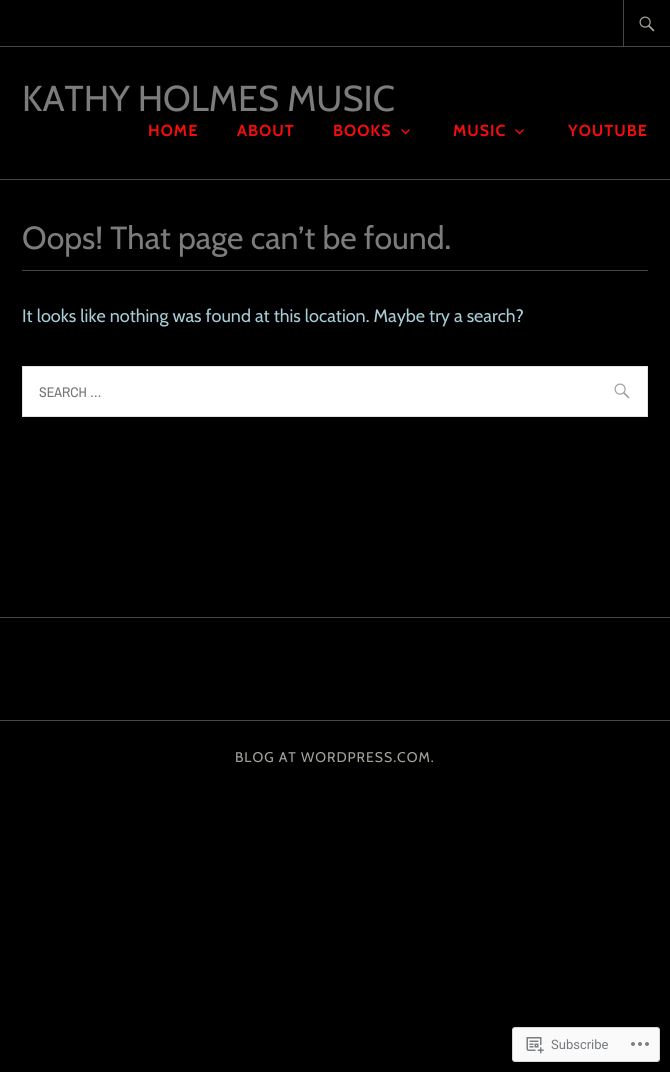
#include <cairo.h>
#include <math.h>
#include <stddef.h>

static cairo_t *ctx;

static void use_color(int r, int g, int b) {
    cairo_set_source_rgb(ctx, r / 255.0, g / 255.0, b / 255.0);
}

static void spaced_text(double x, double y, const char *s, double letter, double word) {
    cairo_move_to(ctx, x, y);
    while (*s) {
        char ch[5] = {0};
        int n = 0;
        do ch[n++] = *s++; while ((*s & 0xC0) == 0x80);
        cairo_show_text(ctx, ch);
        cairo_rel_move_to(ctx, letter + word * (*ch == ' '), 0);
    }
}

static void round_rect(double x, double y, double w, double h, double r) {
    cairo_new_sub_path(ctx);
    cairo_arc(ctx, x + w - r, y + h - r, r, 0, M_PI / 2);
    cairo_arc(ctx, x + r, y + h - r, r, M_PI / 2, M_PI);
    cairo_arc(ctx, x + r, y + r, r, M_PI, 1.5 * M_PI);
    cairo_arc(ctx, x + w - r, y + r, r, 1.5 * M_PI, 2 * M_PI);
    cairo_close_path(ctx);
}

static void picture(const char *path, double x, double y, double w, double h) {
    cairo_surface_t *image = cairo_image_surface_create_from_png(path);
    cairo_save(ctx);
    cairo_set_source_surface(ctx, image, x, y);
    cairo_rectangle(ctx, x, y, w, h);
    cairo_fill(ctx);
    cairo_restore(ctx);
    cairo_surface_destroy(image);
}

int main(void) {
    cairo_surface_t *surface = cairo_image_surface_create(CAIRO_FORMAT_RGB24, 670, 1072);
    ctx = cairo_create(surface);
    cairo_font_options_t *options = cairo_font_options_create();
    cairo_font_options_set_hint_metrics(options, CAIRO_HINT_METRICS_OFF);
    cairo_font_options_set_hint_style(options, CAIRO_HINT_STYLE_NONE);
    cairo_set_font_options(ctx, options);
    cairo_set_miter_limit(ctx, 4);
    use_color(0, 0, 0);
    cairo_paint(ctx);
    use_color(71, 71, 70);
    cairo_rectangle(ctx, 0, 179, 670, 1);
    cairo_fill(ctx);
    cairo_rectangle(ctx, 0, 46, 670, 1);
    cairo_fill(ctx);
    cairo_rectangle(ctx, 623, 0, 1, 46);
    cairo_fill(ctx);
    picture("img1.png", 639, 16, 16, 16);
    cairo_select_font_face(ctx, "Cabin", CAIRO_FONT_SLANT_NORMAL, CAIRO_FONT_WEIGHT_NORMAL);
    cairo_set_font_size(ctx, 36);
    use_color(124, 124, 124);
    cairo_move_to(ctx, 22, 111);
    cairo_show_text(ctx, "KATHY HOLMES MUSIC");
    cairo_select_font_face(ctx, "Cabin", CAIRO_FONT_SLANT_NORMAL, CAIRO_FONT_WEIGHT_BOLD);
    cairo_set_font_size(ctx, 16);
    use_color(247, 12, 12);
    spaced_text(148, 136, "HOME", 1, 0);
    spaced_text(237, 136, "ABOUT", 1, 0);
    spaced_text(333, 136, "BOOKS", 1, 0);
    picture("img2.png", 401, 129, 9, 6);
    spaced_text(453, 136, "MUSIC", 1, 0);
    picture("img2.png", 515, 129, 9, 6);
    spaced_text(568, 136, "YOUTUBE", 1, 0);
    use_color(71, 71, 70);
    cairo_rectangle(ctx, 22, 270, 626, 1);
    cairo_fill(ctx);
    cairo_select_font_face(ctx, "Cabin", CAIRO_FONT_SLANT_NORMAL, CAIRO_FONT_WEIGHT_NORMAL);
    cairo_set_font_size(ctx, 32);
    use_color(124, 124, 124);
    cairo_move_to(ctx, 22, 249);
    cairo_show_text(ctx, "Oops! That page can’t be found.");
    cairo_set_font_size(ctx, 18);
    use_color(167, 204, 214);
    cairo_move_to(ctx, 22, 322);
    cairo_show_text(ctx, "It looks like nothing was found at this location. Maybe try a search?");
    use_color(255, 255, 255);
    cairo_rectangle(ctx, 22.5, 366.5, 625, 50);
    cairo_fill_preserve(ctx);
    use_color(228, 227, 226);
    cairo_set_line_width(ctx, 1);
    cairo_stroke(ctx);
    cairo_select_font_face(ctx, "Archivo Narrow", CAIRO_FONT_SLANT_NORMAL, CAIRO_FONT_WEIGHT_NORMAL);
    cairo_set_font_size(ctx, 14);
    use_color(117, 117, 117);
    cairo_move_to(ctx, 39, 397);
    cairo_show_text(ctx, "SEARCH …");
    picture("img3.png", 614, 383, 16, 16);
    use_color(71, 71, 70);
    cairo_rectangle(ctx, 0, 617, 670, 1);
    cairo_fill(ctx);
    cairo_rectangle(ctx, 0, 720, 670, 1);
    cairo_fill(ctx);
    cairo_select_font_face(ctx, "Cabin", CAIRO_FONT_SLANT_NORMAL, CAIRO_FONT_WEIGHT_NORMAL);
    use_color(165, 162, 157);
    spaced_text(235, 762, "BLOG AT WORDPRESS.COM.", 1, 0);
    use_color(250, 250, 250);
    round_rect(512.5, 1027.5, 147, 34, 2.5);
    cairo_fill_preserve(ctx);
    use_color(216, 216, 218);
    cairo_stroke(ctx);
    picture("img4.png", 526, 1037, 18, 17);
    cairo_select_font_face(ctx, "Roboto", CAIRO_FONT_SLANT_NORMAL, CAIRO_FONT_WEIGHT_NORMAL);
    cairo_set_font_size(ctx, 13);
    use_color(118, 122, 127);
    cairo_move_to(ctx, 551, 1049);
    cairo_show_text(ctx, "Subscribe");
    picture("img5.png", 631, 1042, 18, 4);
    cairo_surface_write_to_png(surface, "result.png");
    cairo_font_options_destroy(options);
    cairo_destroy(ctx);
    cairo_surface_destroy(surface);
    return 0;
}
